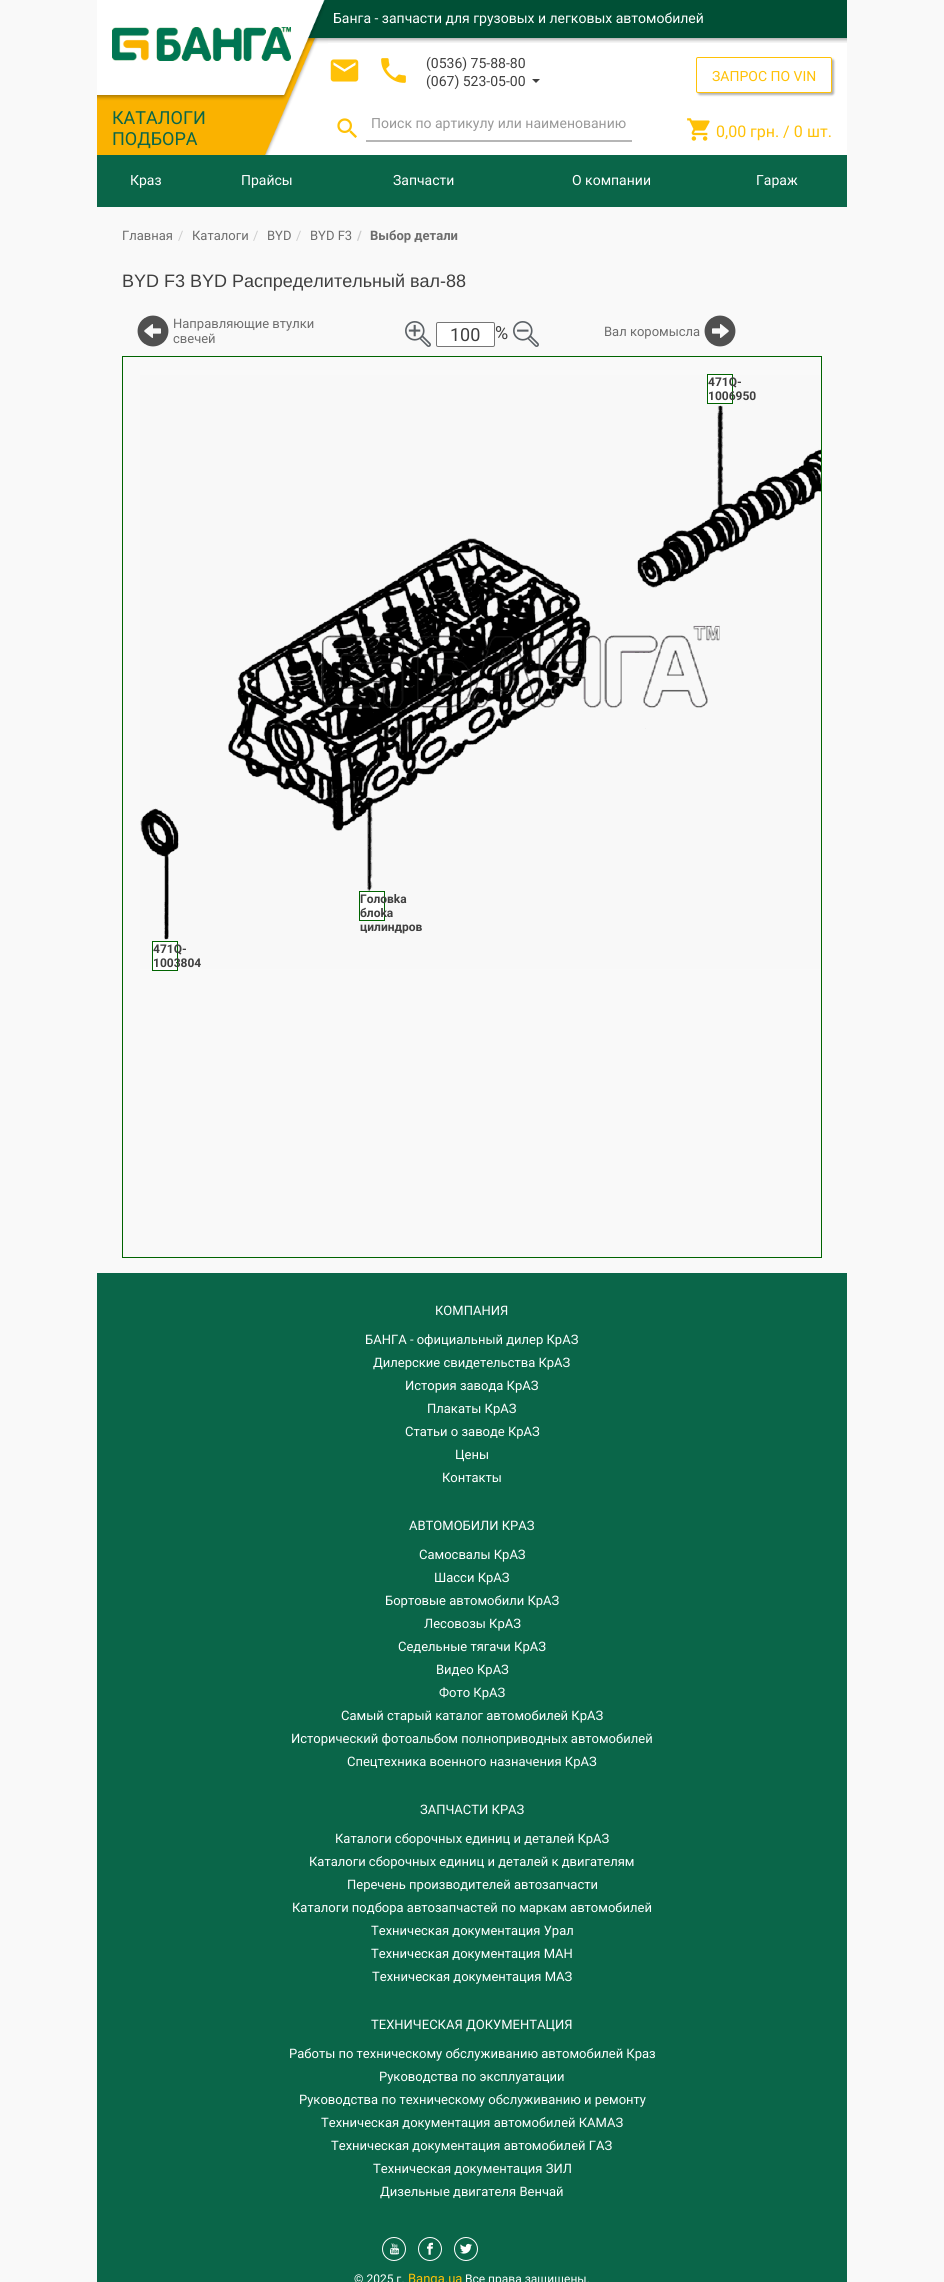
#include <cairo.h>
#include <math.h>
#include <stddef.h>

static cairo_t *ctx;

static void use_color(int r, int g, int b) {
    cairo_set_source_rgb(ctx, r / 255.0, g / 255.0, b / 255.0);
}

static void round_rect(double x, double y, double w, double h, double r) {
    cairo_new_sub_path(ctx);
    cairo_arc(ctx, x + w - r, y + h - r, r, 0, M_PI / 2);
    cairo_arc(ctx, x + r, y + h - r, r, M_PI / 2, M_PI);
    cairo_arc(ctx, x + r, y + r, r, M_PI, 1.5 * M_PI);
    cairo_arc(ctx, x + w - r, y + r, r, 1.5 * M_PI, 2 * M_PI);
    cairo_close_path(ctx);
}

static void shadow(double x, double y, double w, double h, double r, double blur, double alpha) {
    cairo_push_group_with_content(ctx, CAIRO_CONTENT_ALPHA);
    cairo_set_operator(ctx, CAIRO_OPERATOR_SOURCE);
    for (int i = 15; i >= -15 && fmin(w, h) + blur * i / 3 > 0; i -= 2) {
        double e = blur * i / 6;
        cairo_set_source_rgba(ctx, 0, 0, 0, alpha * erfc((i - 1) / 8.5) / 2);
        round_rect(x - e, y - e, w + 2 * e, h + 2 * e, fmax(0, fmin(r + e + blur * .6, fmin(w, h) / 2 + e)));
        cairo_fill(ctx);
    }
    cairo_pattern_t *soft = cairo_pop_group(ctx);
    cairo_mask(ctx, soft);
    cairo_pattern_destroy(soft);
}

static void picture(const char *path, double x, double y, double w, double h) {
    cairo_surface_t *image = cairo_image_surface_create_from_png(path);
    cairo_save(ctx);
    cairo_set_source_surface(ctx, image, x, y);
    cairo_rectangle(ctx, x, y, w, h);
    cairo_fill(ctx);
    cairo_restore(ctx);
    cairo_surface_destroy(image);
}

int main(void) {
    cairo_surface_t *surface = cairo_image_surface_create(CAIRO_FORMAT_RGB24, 944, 2282);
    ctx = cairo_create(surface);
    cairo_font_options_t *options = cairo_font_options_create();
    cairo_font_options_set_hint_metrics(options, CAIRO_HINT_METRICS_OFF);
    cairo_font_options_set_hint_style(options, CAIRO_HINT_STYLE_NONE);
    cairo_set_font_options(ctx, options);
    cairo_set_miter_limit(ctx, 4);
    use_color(249, 249, 249);
    cairo_paint(ctx);
    use_color(255, 255, 255);
    cairo_rectangle(ctx, 328, 43, 519, 112);
    cairo_fill(ctx);
    picture("img1.png", 832, 0, 15, 43);
    cairo_rectangle(ctx, 265, 38, 63, 117);
    cairo_fill(ctx);
    picture("img2.png", 112, 0, 216, 155);
    picture("img3.png", 97, 0, 15, 155);
    picture("img4.png", 112, 27, 179, 34);
    cairo_select_font_face(ctx, "Roboto", CAIRO_FONT_SLANT_NORMAL, CAIRO_FONT_WEIGHT_NORMAL);
    cairo_set_font_size(ctx, 18);
    use_color(10, 102, 73);
    cairo_move_to(ctx, 112, 124);
    cairo_show_text(ctx, "КАТАЛОГИ");
    cairo_move_to(ctx, 112, 145);
    cairo_show_text(ctx, "ПОДБОРА");
    picture("img5.png", 328, 0, 504, 43);
    cairo_set_font_size(ctx, 14);
    use_color(255, 255, 255);
    cairo_move_to(ctx, 333, 23);
    cairo_show_text(ctx, "Банга - запчасти для грузовых и легковых автомобилей");
    picture("img6.png", 330, 59, 29, 23);
    picture("img7.png", 381, 58, 25, 25);
    use_color(63, 63, 63);
    cairo_move_to(ctx, 426, 68);
    cairo_show_text(ctx, "(0536) 75-88-80");
    cairo_move_to(ctx, 426, 86);
    cairo_show_text(ctx, "(067) 523-05-00");
    cairo_new_path(ctx);
    cairo_move_to(ctx, 532, 79);
    cairo_line_to(ctx, 540, 79);
    cairo_line_to(ctx, 536, 83);
    cairo_close_path(ctx);
    cairo_fill(ctx);
    picture("img8.png", 337, 118, 20, 20);
    use_color(182, 182, 182);
    cairo_rectangle(ctx, 366, 140, 266, 2);
    cairo_fill(ctx);
    use_color(153, 153, 153);
    cairo_move_to(ctx, 371, 128);
    cairo_show_text(ctx, "Поиск по артикулу или наименованию");
    use_color(0, 0, 0);
    shadow(698, 59, 136, 36, 2, 1, 0.3);
    use_color(255, 255, 255);
    round_rect(696.5, 57.5, 135, 35, 1.5);
    cairo_fill_preserve(ctx);
    use_color(255, 193, 7);
    cairo_set_line_width(ctx, 1);
    cairo_stroke(ctx);
    cairo_move_to(ctx, 712, 81);
    cairo_show_text(ctx, "ЗАПРОС ПО VIN");
    picture("img9.png", 687, 118, 23, 23);
    cairo_set_font_size(ctx, 16);
    cairo_move_to(ctx, 716, 137);
    cairo_show_text(ctx, "0,00");
    cairo_move_to(ctx, 750, 137);
    cairo_show_text(ctx, "грн. / 0");
    cairo_move_to(ctx, 807, 137);
    cairo_show_text(ctx, "шт.");
    use_color(10, 102, 73);
    cairo_rectangle(ctx, 97, 155, 750, 52);
    cairo_fill(ctx);
    cairo_set_font_size(ctx, 14);
    use_color(255, 255, 255);
    cairo_move_to(ctx, 130, 185);
    cairo_show_text(ctx, "Краз");
    cairo_move_to(ctx, 241, 185);
    cairo_show_text(ctx, "Прайсы");
    cairo_move_to(ctx, 393, 185);
    cairo_show_text(ctx, "Запчасти");
    cairo_move_to(ctx, 572, 185);
    cairo_show_text(ctx, "О компании");
    cairo_move_to(ctx, 756, 185);
    cairo_show_text(ctx, "Гараж");
    cairo_set_font_size(ctx, 13);
    use_color(109, 109, 109);
    cairo_move_to(ctx, 122, 240);
    cairo_show_text(ctx, "Главная");
    use_color(204, 204, 204);
    cairo_move_to(ctx, 178, 240);
    cairo_show_text(ctx, "/");
    use_color(109, 109, 109);
    cairo_move_to(ctx, 192, 240);
    cairo_show_text(ctx, "Каталоги");
    use_color(204, 204, 204);
    cairo_move_to(ctx, 253, 240);
    cairo_show_text(ctx, "/");
    use_color(109, 109, 109);
    cairo_move_to(ctx, 267, 240);
    cairo_show_text(ctx, "BYD");
    use_color(204, 204, 204);
    cairo_move_to(ctx, 296, 240);
    cairo_show_text(ctx, "/");
    use_color(109, 109, 109);
    cairo_move_to(ctx, 310, 240);
    cairo_show_text(ctx, "BYD F3");
    cairo_select_font_face(ctx, "Roboto", CAIRO_FONT_SLANT_NORMAL, CAIRO_FONT_WEIGHT_BOLD);
    use_color(204, 204, 204);
    cairo_move_to(ctx, 357, 240);
    cairo_show_text(ctx, "/");
    use_color(109, 109, 109);
    cairo_move_to(ctx, 370, 240);
    cairo_show_text(ctx, "Выбор детали");
    cairo_select_font_face(ctx, "Liberation Sans", CAIRO_FONT_SLANT_NORMAL, CAIRO_FONT_WEIGHT_NORMAL);
    cairo_set_font_size(ctx, 18);
    use_color(63, 63, 63);
    cairo_move_to(ctx, 122, 287);
    cairo_show_text(ctx, "BYD F3 BYD Распределительный вал-88");
    picture("img10.png", 137, 315, 32, 32);
    cairo_select_font_face(ctx, "Roboto", CAIRO_FONT_SLANT_NORMAL, CAIRO_FONT_WEIGHT_NORMAL);
    cairo_set_font_size(ctx, 13);
    use_color(109, 109, 109);
    cairo_move_to(ctx, 173, 328);
    cairo_show_text(ctx, "Направляющие втулки");
    cairo_move_to(ctx, 173, 343);
    cairo_show_text(ctx, "свечей");
    picture("img11.png", 405, 321, 26, 26);
    use_color(255, 255, 255);
    round_rect(436.5, 322.5, 58, 24, 1.5);
    cairo_fill_preserve(ctx);
    use_color(118, 118, 118);
    cairo_stroke(ctx);
    cairo_set_font_size(ctx, 18);
    use_color(63, 63, 63);
    cairo_move_to(ctx, 450, 341);
    cairo_show_text(ctx, "100");
    cairo_move_to(ctx, 495, 339);
    cairo_show_text(ctx, "%");
    picture("img12.png", 513, 321, 26, 26);
    cairo_set_font_size(ctx, 13);
    use_color(109, 109, 109);
    cairo_move_to(ctx, 604, 336);
    cairo_show_text(ctx, "Вал коромысла");
    picture("img13.png", 704, 315, 32, 32);
    cairo_rectangle(ctx, 122.5, 356.5, 699, 901);
    use_color(0, 100, 0);
    cairo_stroke(ctx);
    picture("img14.png", 140, 375, 681, 594);
    use_color(255, 255, 255);
    cairo_rectangle(ctx, 707.5, 374.5, 25, 29);
    cairo_fill_preserve(ctx);
    use_color(0, 100, 0);
    cairo_stroke(ctx);
    cairo_select_font_face(ctx, "Roboto", CAIRO_FONT_SLANT_NORMAL, CAIRO_FONT_WEIGHT_BOLD);
    cairo_set_font_size(ctx, 12);
    use_color(63, 63, 63);
    cairo_move_to(ctx, 708, 386);
    cairo_show_text(ctx, "471Q-");
    cairo_move_to(ctx, 708, 400);
    cairo_show_text(ctx, "1006950");
    use_color(255, 255, 255);
    cairo_rectangle(ctx, 359.5, 891.5, 25, 29);
    cairo_fill_preserve(ctx);
    use_color(0, 100, 0);
    cairo_stroke(ctx);
    use_color(63, 63, 63);
    cairo_move_to(ctx, 360, 903);
    cairo_show_text(ctx, "Гoлoвka");
    cairo_move_to(ctx, 360, 917);
    cairo_show_text(ctx, "блoka");
    cairo_move_to(ctx, 360, 931);
    cairo_show_text(ctx, "цилиндpoв");
    use_color(255, 255, 255);
    cairo_rectangle(ctx, 152.5, 941.5, 25, 29);
    cairo_fill_preserve(ctx);
    use_color(0, 100, 0);
    cairo_stroke(ctx);
    use_color(63, 63, 63);
    cairo_move_to(ctx, 153, 953);
    cairo_show_text(ctx, "471Q-");
    cairo_move_to(ctx, 153, 967);
    cairo_show_text(ctx, "1003804");
    use_color(10, 102, 73);
    cairo_rectangle(ctx, 97, 1273, 750, 1009);
    cairo_fill(ctx);
    cairo_select_font_face(ctx, "Roboto", CAIRO_FONT_SLANT_NORMAL, CAIRO_FONT_WEIGHT_NORMAL);
    cairo_set_font_size(ctx, 13);
    use_color(255, 255, 255);
    cairo_move_to(ctx, 435, 1315);
    cairo_show_text(ctx, "КОМПАНИЯ");
    cairo_move_to(ctx, 365, 1344);
    cairo_show_text(ctx, "БАНГА - официальный дилер КрАЗ");
    cairo_move_to(ctx, 373, 1367);
    cairo_show_text(ctx, "Дилерские свидетельства КрАЗ");
    cairo_move_to(ctx, 405, 1390);
    cairo_show_text(ctx, "История завода КрАЗ");
    cairo_move_to(ctx, 427, 1413);
    cairo_show_text(ctx, "Плакаты КрАЗ");
    cairo_move_to(ctx, 405, 1436);
    cairo_show_text(ctx, "Статьи о заводе КрАЗ");
    cairo_move_to(ctx, 455, 1459);
    cairo_show_text(ctx, "Цены");
    cairo_move_to(ctx, 442, 1482);
    cairo_show_text(ctx, "Контакты");
    cairo_move_to(ctx, 409, 1530);
    cairo_show_text(ctx, "АВТОМОБИЛИ КРАЗ");
    cairo_move_to(ctx, 419, 1559);
    cairo_show_text(ctx, "Самосвалы КрАЗ");
    cairo_move_to(ctx, 434, 1582);
    cairo_show_text(ctx, "Шасси КрАЗ");
    cairo_move_to(ctx, 385, 1605);
    cairo_show_text(ctx, "Бортовые автомобили КрАЗ");
    cairo_move_to(ctx, 424, 1628);
    cairo_show_text(ctx, "Лесовозы КрАЗ");
    cairo_move_to(ctx, 398, 1651);
    cairo_show_text(ctx, "Седельные тягачи КрАЗ");
    cairo_move_to(ctx, 436, 1674);
    cairo_show_text(ctx, "Видео КрАЗ");
    cairo_move_to(ctx, 439, 1697);
    cairo_show_text(ctx, "Фото КрАЗ");
    cairo_move_to(ctx, 341, 1720);
    cairo_show_text(ctx, "Самый старый каталог автомобилей КрАЗ");
    cairo_move_to(ctx, 291, 1743);
    cairo_show_text(ctx, "Исторический фотоальбом полноприводных автомобилей");
    cairo_move_to(ctx, 347, 1766);
    cairo_show_text(ctx, "Спецтехника военного назначения КрАЗ");
    cairo_move_to(ctx, 420, 1814);
    cairo_show_text(ctx, "ЗАПЧАСТИ КРАЗ");
    cairo_move_to(ctx, 335, 1843);
    cairo_show_text(ctx, "Каталоги сборочных единиц и деталей КрАЗ");
    cairo_move_to(ctx, 309, 1866);
    cairo_show_text(ctx, "Каталоги сборочных единиц и деталей к двигателям");
    cairo_move_to(ctx, 347, 1889);
    cairo_show_text(ctx, "Перечень производителей автозапчасти");
    cairo_move_to(ctx, 292, 1912);
    cairo_show_text(ctx, "Каталоги подбора автозапчастей по маркам автомобилей");
    cairo_move_to(ctx, 371, 1935);
    cairo_show_text(ctx, "Техническая документация Урал");
    cairo_move_to(ctx, 371, 1958);
    cairo_show_text(ctx, "Техническая документация МАН");
    cairo_move_to(ctx, 372, 1981);
    cairo_show_text(ctx, "Техническая документация МАЗ");
    cairo_move_to(ctx, 371, 2029);
    cairo_show_text(ctx, "ТЕХНИЧЕСКАЯ ДОКУМЕНТАЦИЯ");
    cairo_move_to(ctx, 289, 2058);
    cairo_show_text(ctx, "Работы по техническому обслуживанию автомобилей Краз");
    cairo_move_to(ctx, 379, 2081);
    cairo_show_text(ctx, "Руководства по эксплуатации");
    cairo_move_to(ctx, 299, 2104);
    cairo_show_text(ctx, "Руководства по техническому обслуживанию и ремонту");
    cairo_move_to(ctx, 321, 2127);
    cairo_show_text(ctx, "Техническая документация автомобилей КАМАЗ");
    cairo_move_to(ctx, 331, 2150);
    cairo_show_text(ctx, "Техническая документация автомобилей ГАЗ");
    cairo_move_to(ctx, 373, 2173);
    cairo_show_text(ctx, "Техническая документация ЗИЛ");
    cairo_move_to(ctx, 380, 2196);
    cairo_show_text(ctx, "Дизельные двигателя Венчай");
    cairo_new_path(ctx);
    cairo_arc(ctx, 394, 2249, 11.5, 0, 2 * M_PI);
    cairo_stroke(ctx);
    picture("img15.png", 390, 2243, 9, 12);
    cairo_arc(ctx, 430, 2249, 11.5, 0, 2 * M_PI);
    cairo_stroke(ctx);
    picture("img16.png", 427, 2242, 6, 13);
    cairo_arc(ctx, 466, 2249, 11.5, 0, 2 * M_PI);
    cairo_stroke(ctx);
    picture("img17.png", 460, 2243, 12, 11);
    cairo_set_font_size(ctx, 12);
    cairo_move_to(ctx, 354, 2283);
    cairo_show_text(ctx, "© 2025 г.");
    cairo_set_font_size(ctx, 13);
    use_color(255, 193, 7);
    cairo_move_to(ctx, 408, 2283);
    cairo_show_text(ctx, "Banga.ua");
    cairo_set_font_size(ctx, 12);
    use_color(255, 255, 255);
    cairo_move_to(ctx, 465, 2283);
    cairo_show_text(ctx, "Все права защищены.");
    cairo_surface_write_to_png(surface, "result.png");
    cairo_font_options_destroy(options);
    cairo_destroy(ctx);
    cairo_surface_destroy(surface);
    return 0;
}
